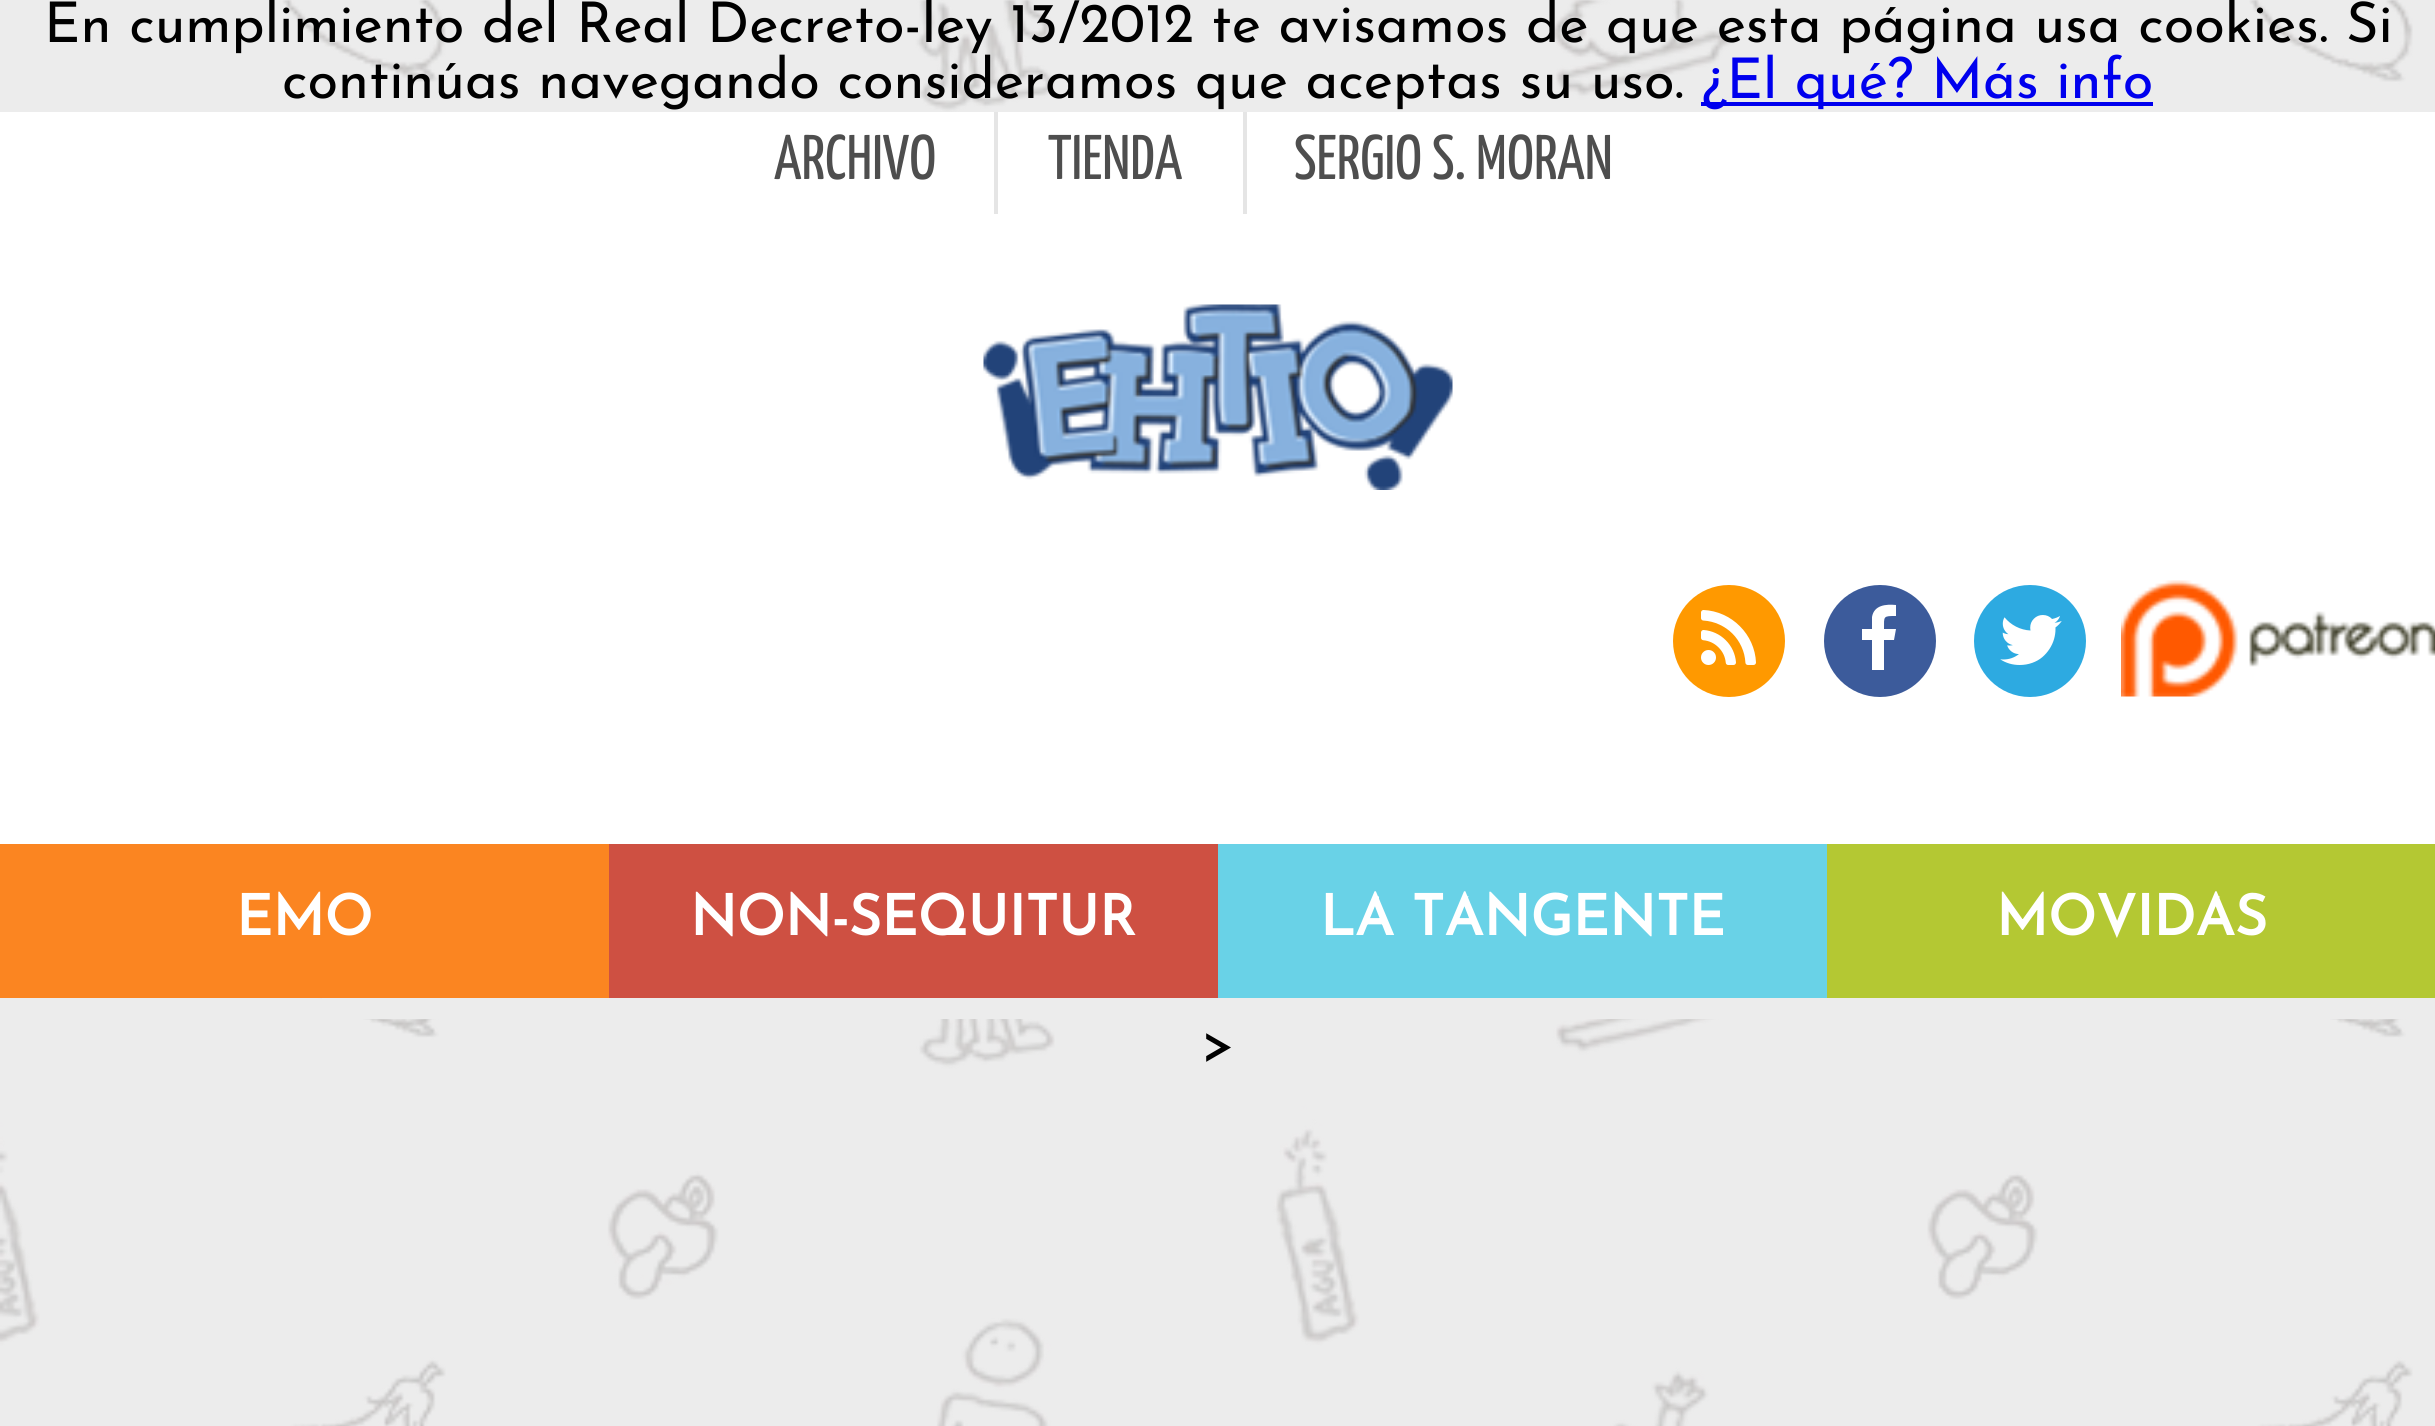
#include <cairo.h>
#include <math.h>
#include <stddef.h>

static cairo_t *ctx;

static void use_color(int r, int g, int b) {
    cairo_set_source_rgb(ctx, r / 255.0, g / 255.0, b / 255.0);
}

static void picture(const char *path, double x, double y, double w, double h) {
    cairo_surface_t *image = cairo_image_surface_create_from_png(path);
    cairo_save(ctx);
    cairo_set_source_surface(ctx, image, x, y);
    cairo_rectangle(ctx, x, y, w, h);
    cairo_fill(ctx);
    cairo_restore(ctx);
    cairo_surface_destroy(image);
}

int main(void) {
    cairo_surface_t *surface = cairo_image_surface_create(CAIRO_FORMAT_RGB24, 2435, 1426);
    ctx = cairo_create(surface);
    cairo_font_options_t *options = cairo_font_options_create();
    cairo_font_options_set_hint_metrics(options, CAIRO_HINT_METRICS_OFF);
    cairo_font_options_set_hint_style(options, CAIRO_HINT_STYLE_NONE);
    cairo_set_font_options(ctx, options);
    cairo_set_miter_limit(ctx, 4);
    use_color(236, 236, 236);
    cairo_paint(ctx);
    picture("img1.png", 0, 0, 2413, 1426);
    cairo_select_font_face(ctx, "Josefin Sans Thin", CAIRO_FONT_SLANT_NORMAL, CAIRO_FONT_WEIGHT_NORMAL);
    cairo_set_font_size(ctx, 56);
    use_color(0, 0, 0);
    cairo_move_to(ctx, 44, 42);
    cairo_show_text(ctx, "En cumplimiento del Real Decreto-ley 13/2012 te avisamos de que esta página usa cookies. Si");
    cairo_move_to(ctx, 282, 98);
    cairo_show_text(ctx, "continúas navegando consideramos que aceptas su uso.");
    use_color(0, 0, 238);
    cairo_rectangle(ctx, 1701, 102, 452, 4);
    cairo_fill(ctx);
    cairo_move_to(ctx, 1702, 98);
    cairo_show_text(ctx, "¿El qué? Más info");
    use_color(255, 255, 255);
    cairo_rectangle(ctx, 0, 112, 2435, 732);
    cairo_fill(ctx);
    cairo_select_font_face(ctx, "Yanone Kaffeesatz ExtraLight", CAIRO_FONT_SLANT_NORMAL, CAIRO_FONT_WEIGHT_NORMAL);
    cairo_set_font_size(ctx, 63);
    use_color(78, 78, 78);
    cairo_move_to(ctx, 774, 179);
    cairo_show_text(ctx, "ARCHIVO");
    use_color(229, 229, 229);
    cairo_rectangle(ctx, 994, 112, 4, 102);
    cairo_fill(ctx);
    use_color(78, 78, 78);
    cairo_move_to(ctx, 1048, 179);
    cairo_show_text(ctx, "TIENDA");
    use_color(229, 229, 229);
    cairo_rectangle(ctx, 1243, 112, 4, 102);
    cairo_fill(ctx);
    use_color(78, 78, 78);
    cairo_move_to(ctx, 1294, 179);
    cairo_show_text(ctx, "SERGIO S. MORAN");
    picture("img2.png", 983, 304, 470, 186);
    use_color(255, 153, 0);
    cairo_arc(ctx, 1729, 641, 56, 0, 2 * M_PI);
    cairo_fill(ctx);
    picture("img3.png", 1701, 610, 55, 55);
    use_color(60, 91, 155);
    cairo_arc(ctx, 1880, 641, 56, 0, 2 * M_PI);
    cairo_fill(ctx);
    use_color(255, 255, 255);
    cairo_new_path(ctx);
    cairo_move_to(ctx, 1896, 605);
    cairo_line_to(ctx, 1896, 616);
    cairo_curve_to(ctx, 1883, 616, 1884, 616, 1884, 629);
    cairo_line_to(ctx, 1896, 629);
    cairo_line_to(ctx, 1894, 640);
    cairo_line_to(ctx, 1884, 640);
    cairo_line_to(ctx, 1884, 670);
    cairo_line_to(ctx, 1872, 670);
    cairo_line_to(ctx, 1872, 640);
    cairo_line_to(ctx, 1862, 640);
    cairo_line_to(ctx, 1862, 629);
    cairo_line_to(ctx, 1872, 629);
    cairo_line_to(ctx, 1872, 617);
    cairo_curve_to(ctx, 1874, 605, 1886, 604, 1896, 605);
    cairo_close_path(ctx);
    cairo_fill(ctx);
    use_color(45, 170, 225);
    cairo_arc(ctx, 2030, 641, 56, 0, 2 * M_PI);
    cairo_fill(ctx);
    picture("img4.png", 2000, 615, 62, 50);
    picture("img5.png", 2121, 580, 314, 117);
    use_color(236, 236, 236);
    cairo_rectangle(ctx, 322, 998, 2091, 21);
    cairo_fill(ctx);
    use_color(251, 133, 33);
    cairo_rectangle(ctx, 0, 844, 609, 154);
    cairo_fill(ctx);
    cairo_select_font_face(ctx, "Josefin Sans", CAIRO_FONT_SLANT_NORMAL, CAIRO_FONT_WEIGHT_BOLD);
    cairo_set_font_size(ctx, 56);
    use_color(255, 255, 255);
    cairo_move_to(ctx, 236, 935);
    cairo_show_text(ctx, "EMO");
    use_color(206, 80, 66);
    cairo_rectangle(ctx, 609, 844, 609, 154);
    cairo_fill(ctx);
    use_color(255, 255, 255);
    cairo_move_to(ctx, 690, 935);
    cairo_show_text(ctx, "NON-SEQUITUR");
    use_color(105, 210, 231);
    cairo_rectangle(ctx, 1218, 844, 609, 154);
    cairo_fill(ctx);
    use_color(255, 255, 255);
    cairo_move_to(ctx, 1320, 935);
    cairo_show_text(ctx, "LA TANGENTE");
    use_color(180, 200, 51);
    cairo_rectangle(ctx, 1827, 844, 608, 154);
    cairo_fill(ctx);
    use_color(255, 255, 255);
    cairo_move_to(ctx, 1996, 935);
    cairo_show_text(ctx, "MOVIDAS");
    cairo_select_font_face(ctx, "Josefin Sans Thin", CAIRO_FONT_SLANT_NORMAL, CAIRO_FONT_WEIGHT_NORMAL);
    use_color(0, 0, 0);
    cairo_move_to(ctx, 1201, 1061);
    cairo_show_text(ctx, ">");
    cairo_surface_write_to_png(surface, "result.png");
    cairo_font_options_destroy(options);
    cairo_destroy(ctx);
    cairo_surface_destroy(surface);
    return 0;
}
